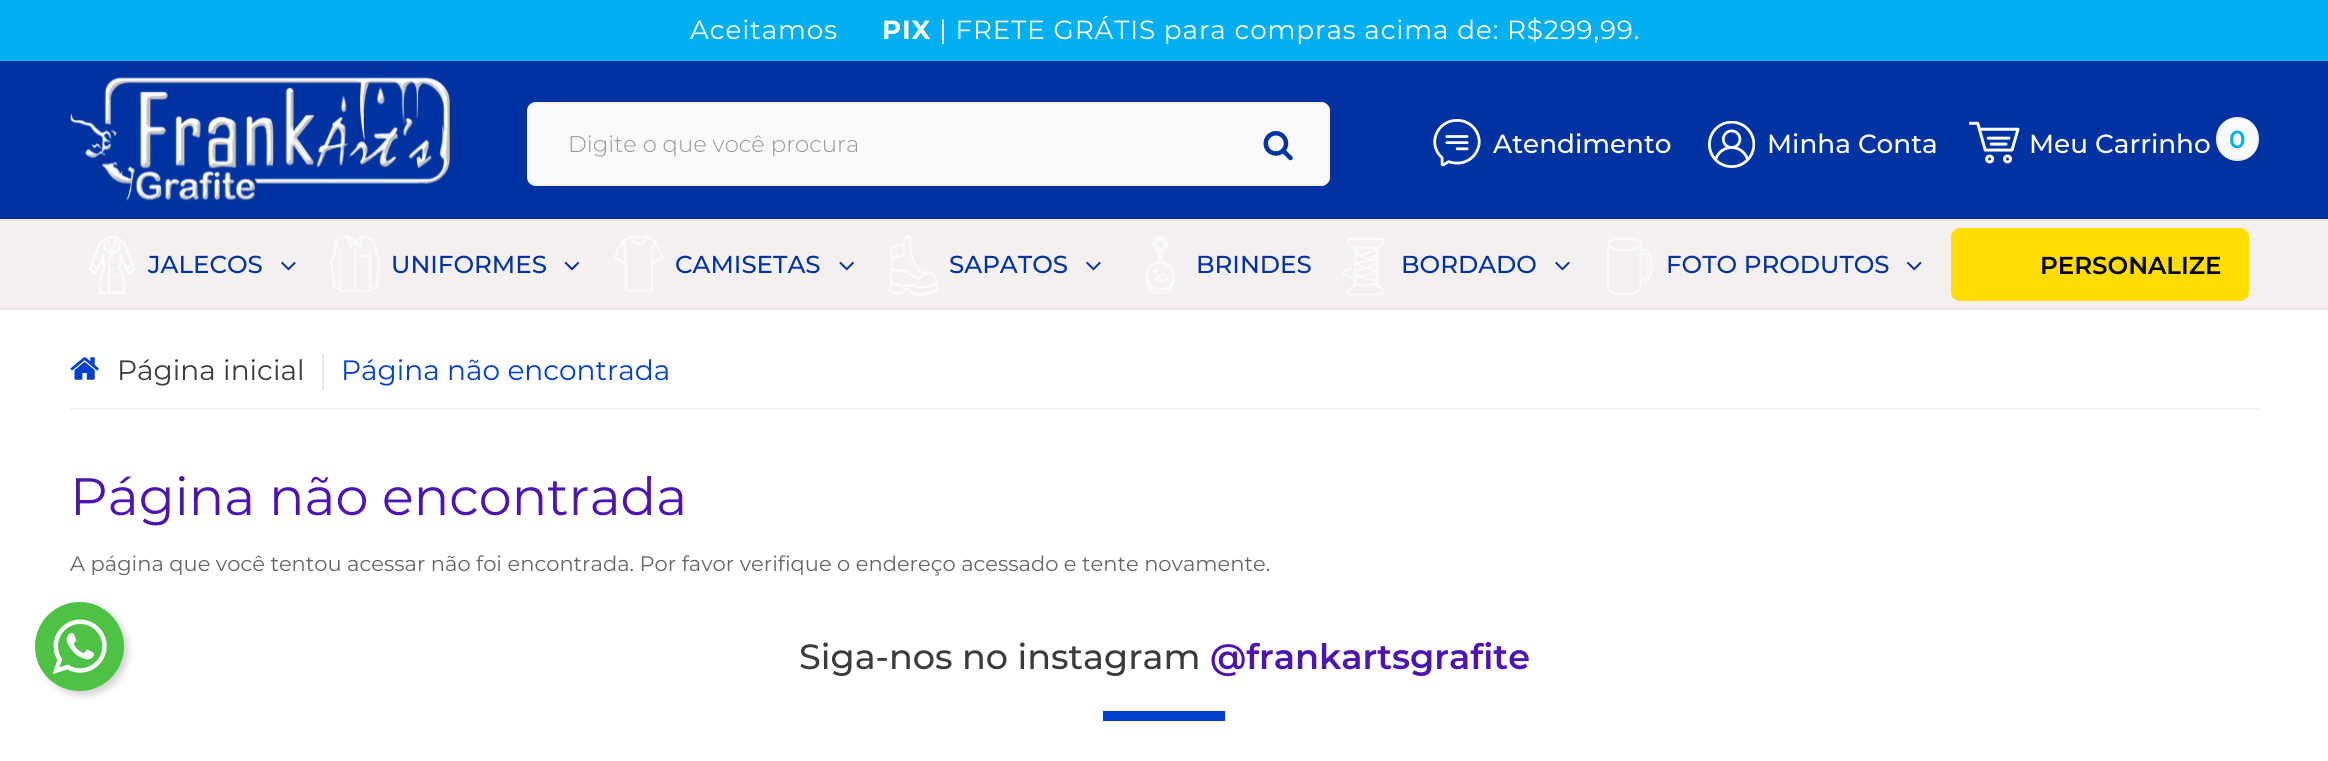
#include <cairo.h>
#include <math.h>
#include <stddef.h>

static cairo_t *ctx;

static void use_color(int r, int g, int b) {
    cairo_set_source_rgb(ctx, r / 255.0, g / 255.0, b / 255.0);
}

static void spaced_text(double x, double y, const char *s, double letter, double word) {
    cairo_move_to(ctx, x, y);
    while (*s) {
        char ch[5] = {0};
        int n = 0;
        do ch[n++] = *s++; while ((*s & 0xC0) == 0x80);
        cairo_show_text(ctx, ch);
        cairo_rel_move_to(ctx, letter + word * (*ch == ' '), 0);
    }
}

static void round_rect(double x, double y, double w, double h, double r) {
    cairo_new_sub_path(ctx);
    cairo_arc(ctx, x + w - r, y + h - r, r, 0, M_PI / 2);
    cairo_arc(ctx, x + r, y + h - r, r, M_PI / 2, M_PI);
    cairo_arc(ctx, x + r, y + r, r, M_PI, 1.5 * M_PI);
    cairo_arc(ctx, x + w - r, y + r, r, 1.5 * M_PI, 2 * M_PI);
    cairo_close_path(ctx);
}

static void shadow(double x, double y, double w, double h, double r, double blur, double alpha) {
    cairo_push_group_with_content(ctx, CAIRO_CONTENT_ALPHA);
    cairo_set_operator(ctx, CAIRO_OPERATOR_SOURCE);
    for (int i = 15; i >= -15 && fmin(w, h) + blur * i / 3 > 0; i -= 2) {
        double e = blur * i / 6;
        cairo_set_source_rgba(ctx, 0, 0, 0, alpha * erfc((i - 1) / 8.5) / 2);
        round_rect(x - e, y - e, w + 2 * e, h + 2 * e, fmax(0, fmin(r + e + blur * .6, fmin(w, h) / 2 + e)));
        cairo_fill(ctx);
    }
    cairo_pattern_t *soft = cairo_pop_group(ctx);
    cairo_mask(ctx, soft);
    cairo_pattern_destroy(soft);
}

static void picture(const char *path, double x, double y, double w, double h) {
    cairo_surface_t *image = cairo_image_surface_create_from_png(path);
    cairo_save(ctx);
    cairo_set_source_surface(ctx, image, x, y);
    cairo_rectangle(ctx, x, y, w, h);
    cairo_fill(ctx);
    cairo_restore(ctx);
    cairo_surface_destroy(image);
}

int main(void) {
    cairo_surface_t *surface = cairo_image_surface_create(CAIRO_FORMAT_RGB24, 2328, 761);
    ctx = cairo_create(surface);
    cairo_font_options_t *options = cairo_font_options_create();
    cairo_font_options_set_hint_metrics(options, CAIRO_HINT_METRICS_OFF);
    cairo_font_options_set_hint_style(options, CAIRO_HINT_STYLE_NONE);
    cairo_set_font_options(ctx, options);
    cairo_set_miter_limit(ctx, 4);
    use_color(255, 255, 255);
    cairo_paint(ctx);
    use_color(0, 175, 239);
    cairo_rectangle(ctx, 0, 0, 2328, 60);
    cairo_fill(ctx);
    use_color(25, 174, 228);
    cairo_rectangle(ctx, 0, 60, 2328, 1);
    cairo_fill(ctx);
    cairo_select_font_face(ctx, "Montserrat", CAIRO_FONT_SLANT_NORMAL, CAIRO_FONT_WEIGHT_NORMAL);
    cairo_set_font_size(ctx, 26.25);
    use_color(255, 255, 255);
    spaced_text(690, 39, "Aceitamos", 0.9, 0);
    cairo_select_font_face(ctx, "Montserrat", CAIRO_FONT_SLANT_NORMAL, CAIRO_FONT_WEIGHT_BOLD);
    spaced_text(882, 39, "PIX", 0.9, 0);
    cairo_select_font_face(ctx, "Montserrat", CAIRO_FONT_SLANT_NORMAL, CAIRO_FONT_WEIGHT_NORMAL);
    spaced_text(939, 39, "| FRETE GRÁTIS para compras acima de: R$299,99.", 0.9, 0);
    use_color(0, 50, 161);
    cairo_rectangle(ctx, 0, 61, 2328, 158);
    cairo_fill(ctx);
    picture("img1.png", 70, 77, 380, 124);
    use_color(249, 249, 249);
    round_rect(527, 102, 803, 84, 9);
    cairo_fill(ctx);
    round_rect(528, 103, 801, 82, 8);
    cairo_set_source_rgba(ctx, 0.933, 0.933, 0.933, 0.57);
    cairo_stroke(ctx);
    cairo_select_font_face(ctx, "Montserrat Light", CAIRO_FONT_SLANT_NORMAL, CAIRO_FONT_WEIGHT_NORMAL);
    cairo_set_font_size(ctx, 22.75);
    use_color(150, 150, 150);
    cairo_move_to(ctx, 568, 152);
    cairo_show_text(ctx, "Digite o que você procura");
    picture("img2.png", 1263, 131, 30, 30);
    picture("img3.png", 1433, 119, 48, 48);
    cairo_select_font_face(ctx, "Montserrat Medium", CAIRO_FONT_SLANT_NORMAL, CAIRO_FONT_WEIGHT_NORMAL);
    cairo_set_font_size(ctx, 26.25);
    use_color(255, 255, 255);
    cairo_move_to(ctx, 1493, 153);
    cairo_show_text(ctx, "Atendimento");
    picture("img4.png", 1708, 121, 47, 47);
    cairo_move_to(ctx, 1767, 153);
    cairo_show_text(ctx, "Minha Conta");
    picture("img5.png", 1969, 121, 51, 43);
    cairo_move_to(ctx, 2029, 153);
    cairo_show_text(ctx, "Meu Carrinho");
    use_color(249, 249, 249);
    round_rect(2216, 117, 43, 44, 21.5);
    cairo_fill(ctx);
    cairo_rectangle(ctx, 2217, 118, 41, 42);
    cairo_set_source_rgba(ctx, 0, 0, 0, 0.06);
    cairo_stroke(ctx);
    cairo_select_font_face(ctx, "Montserrat SemiBold", CAIRO_FONT_SLANT_NORMAL, CAIRO_FONT_WEIGHT_NORMAL);
    cairo_set_font_size(ctx, 24.5);
    use_color(0, 175, 239);
    cairo_move_to(ctx, 2229, 148);
    cairo_show_text(ctx, "0");
    use_color(245, 240, 240);
    cairo_rectangle(ctx, 0, 221, 2328, 87);
    cairo_fill(ctx);
    use_color(233, 229, 229);
    cairo_rectangle(ctx, 0, 219, 2328, 2);
    cairo_fill(ctx);
    cairo_rectangle(ctx, 0, 308, 2328, 2);
    cairo_fill(ctx);
    picture("img6.png", 89, 236, 46, 58);
    cairo_select_font_face(ctx, "Montserrat Medium", CAIRO_FONT_SLANT_NORMAL, CAIRO_FONT_WEIGHT_NORMAL);
    use_color(0, 50, 161);
    cairo_move_to(ctx, 148, 273);
    cairo_show_text(ctx, "JALECOS");
    picture("img7.png", 281, 261, 15, 10);
    picture("img8.png", 330, 235, 50, 57);
    cairo_move_to(ctx, 391, 273);
    cairo_show_text(ctx, "UNIFORMES");
    picture("img9.png", 564, 261, 16, 10);
    picture("img10.png", 614, 235, 50, 57);
    cairo_move_to(ctx, 675, 273);
    cairo_show_text(ctx, "CAMISETAS");
    picture("img11.png", 839, 261, 15, 10);
    picture("img12.png", 889, 235, 49, 61);
    cairo_move_to(ctx, 949, 273);
    cairo_show_text(ctx, "SAPATOS");
    picture("img7.png", 1086, 261, 15, 10);
    picture("img13.png", 1145, 236, 30, 58);
    cairo_move_to(ctx, 1196, 273);
    cairo_show_text(ctx, "BRINDES");
    picture("img14.png", 1342, 238, 43, 58);
    cairo_move_to(ctx, 1401, 273);
    cairo_show_text(ctx, "BORDADO");
    picture("img7.png", 1555, 261, 15, 10);
    picture("img15.png", 1607, 238, 46, 58);
    cairo_move_to(ctx, 1666, 273);
    cairo_show_text(ctx, "FOTO PRODUTOS");
    picture("img16.png", 1907, 261, 15, 10);
    use_color(255, 221, 3);
    round_rect(1951, 228, 298, 73, 9);
    cairo_fill(ctx);
    cairo_select_font_face(ctx, "Montserrat SemiBold", CAIRO_FONT_SLANT_NORMAL, CAIRO_FONT_WEIGHT_NORMAL);
    use_color(0, 0, 0);
    cairo_move_to(ctx, 2040, 274);
    cairo_show_text(ctx, "PERSONALIZE");
    use_color(239, 239, 239);
    cairo_rectangle(ctx, 70, 408, 2189, 2);
    cairo_fill(ctx);
    picture("img17.png", 70, 357, 29, 23);
    cairo_select_font_face(ctx, "Montserrat", CAIRO_FONT_SLANT_NORMAL, CAIRO_FONT_WEIGHT_NORMAL);
    cairo_set_font_size(ctx, 28);
    use_color(62, 59, 59);
    cairo_move_to(ctx, 117, 380);
    cairo_show_text(ctx, "Página inicial");
    use_color(230, 230, 230);
    cairo_rectangle(ctx, 322, 354, 2, 36);
    cairo_fill(ctx);
    use_color(1, 64, 206);
    cairo_move_to(ctx, 341, 380);
    cairo_show_text(ctx, "Página não encontrada");
    cairo_set_font_size(ctx, 52.5);
    use_color(75, 20, 179);
    cairo_move_to(ctx, 70, 515);
    cairo_show_text(ctx, "Página não encontrada");
    cairo_set_font_size(ctx, 21);
    use_color(102, 102, 102);
    cairo_move_to(ctx, 70, 571);
    cairo_show_text(ctx, "A página que você tentou acessar não foi encontrada. Por favor verifique o endereço acessado e tente novamente.");
    cairo_select_font_face(ctx, "Montserrat Medium", CAIRO_FONT_SLANT_NORMAL, CAIRO_FONT_WEIGHT_NORMAL);
    cairo_set_font_size(ctx, 35);
    use_color(62, 59, 59);
    cairo_move_to(ctx, 799, 669);
    cairo_show_text(ctx, "Siga-nos no instagram");
    cairo_select_font_face(ctx, "Montserrat SemiBold", CAIRO_FONT_SLANT_NORMAL, CAIRO_FONT_WEIGHT_NORMAL);
    use_color(75, 20, 179);
    cairo_move_to(ctx, 1210, 669);
    cairo_show_text(ctx, "@frankartsgrafite");
    use_color(1, 64, 206);
    cairo_rectangle(ctx, 1103, 711, 122, 10);
    cairo_fill(ctx);
    use_color(0, 0, 0);
    shadow(39, 606, 89, 89, 44.5, 3.5, 0.18);
    use_color(77, 194, 71);
    cairo_arc(ctx, 79.5, 646.5, 44.5, 0, 2 * M_PI);
    cairo_fill(ctx);
    picture("img18.png", 52, 619, 55, 56);
    cairo_surface_write_to_png(surface, "result.png");
    cairo_font_options_destroy(options);
    cairo_destroy(ctx);
    cairo_surface_destroy(surface);
    return 0;
}
